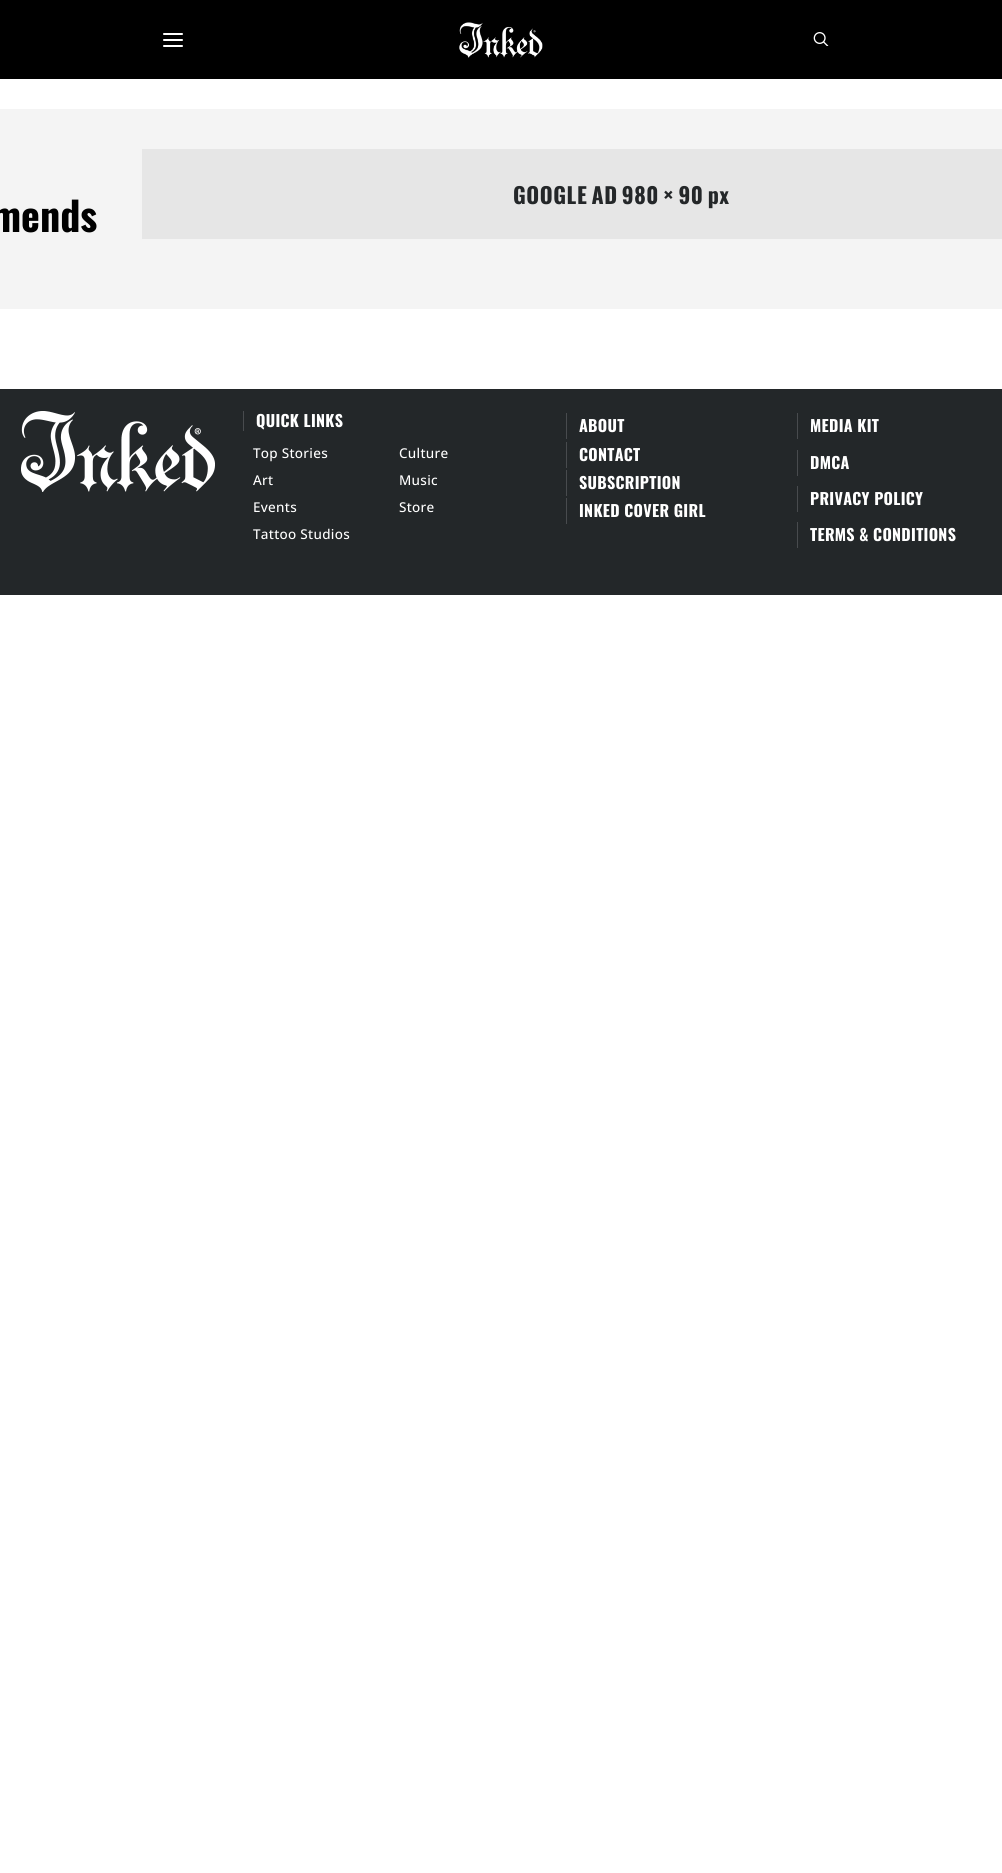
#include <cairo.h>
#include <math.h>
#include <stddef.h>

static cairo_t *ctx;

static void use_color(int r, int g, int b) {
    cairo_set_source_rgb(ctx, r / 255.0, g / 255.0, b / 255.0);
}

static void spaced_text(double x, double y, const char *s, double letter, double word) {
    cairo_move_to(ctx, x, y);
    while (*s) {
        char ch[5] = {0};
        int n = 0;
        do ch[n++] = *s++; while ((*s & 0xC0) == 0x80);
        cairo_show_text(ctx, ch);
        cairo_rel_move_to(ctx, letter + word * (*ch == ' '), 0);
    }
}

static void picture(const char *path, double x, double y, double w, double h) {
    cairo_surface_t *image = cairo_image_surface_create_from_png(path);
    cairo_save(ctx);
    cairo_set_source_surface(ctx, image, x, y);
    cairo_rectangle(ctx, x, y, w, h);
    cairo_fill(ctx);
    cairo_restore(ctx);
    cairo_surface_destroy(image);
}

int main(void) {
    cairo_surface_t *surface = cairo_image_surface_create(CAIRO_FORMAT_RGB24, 1002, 1873);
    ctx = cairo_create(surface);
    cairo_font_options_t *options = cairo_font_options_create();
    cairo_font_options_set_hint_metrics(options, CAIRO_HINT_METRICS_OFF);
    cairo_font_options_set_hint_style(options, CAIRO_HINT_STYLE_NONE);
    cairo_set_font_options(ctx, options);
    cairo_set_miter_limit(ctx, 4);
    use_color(255, 255, 255);
    cairo_paint(ctx);
    use_color(0, 0, 0);
    cairo_rectangle(ctx, 0, 0, 1002, 79);
    cairo_fill(ctx);
    picture("img1.png", 459, 22, 84, 36);
    picture("img2.png", 163, 33, 20, 14);
    picture("img3.png", 813, 32, 16, 14);
    use_color(244, 244, 244);
    cairo_rectangle(ctx, 0, 109, 1002, 200);
    cairo_fill(ctx);
    cairo_select_font_face(ctx, "Oswald", CAIRO_FONT_SLANT_NORMAL, CAIRO_FONT_WEIGHT_BOLD);
    cairo_set_font_size(ctx, 40);
    use_color(0, 0, 0);
    cairo_move_to(ctx, -9, 232);
    cairo_show_text(ctx, "mends");
    use_color(230, 230, 230);
    cairo_rectangle(ctx, 142, 149, 860, 90);
    cairo_fill(ctx);
    cairo_set_font_size(ctx, 22);
    use_color(36, 39, 41);
    spaced_text(513, 204, "GOOGLE AD 980 × 90 px", 0.55, -2);
    use_color(35, 39, 41);
    cairo_rectangle(ctx, 0, 389, 1002, 206);
    cairo_fill(ctx);
    picture("img4.png", 21, 411, 194, 81);
    use_color(72, 75, 78);
    cairo_rectangle(ctx, 243, 411, 1, 20);
    cairo_fill(ctx);
    cairo_set_font_size(ctx, 16);
    use_color(255, 255, 255);
    spaced_text(256, 427, "QUICK LINKS", 0.3, 0);
    cairo_select_font_face(ctx, "Open Sans Medium", CAIRO_FONT_SLANT_NORMAL, CAIRO_FONT_WEIGHT_NORMAL);
    cairo_set_font_size(ctx, 13.5);
    spaced_text(253, 458, "Top Stories", 0.3, 0);
    spaced_text(399, 458, "Culture", 0.3, 0);
    spaced_text(253, 485, "Art", 0.3, 0);
    spaced_text(399, 485, "Music", 0.3, 0);
    spaced_text(253, 512, "Events", 0.3, 0);
    spaced_text(399, 512, "Store", 0.3, 0);
    spaced_text(253, 539, "Tattoo Studios", 0.3, 0);
    cairo_select_font_face(ctx, "Oswald", CAIRO_FONT_SLANT_NORMAL, CAIRO_FONT_WEIGHT_BOLD);
    cairo_set_font_size(ctx, 16);
    spaced_text(579, 432, "ABOUT", 0.3, 0);
    use_color(72, 75, 78);
    cairo_rectangle(ctx, 566, 413, 1, 26);
    cairo_fill(ctx);
    use_color(255, 255, 255);
    spaced_text(579, 461, "CONTACT", 0.3, 0);
    use_color(72, 75, 78);
    cairo_rectangle(ctx, 566, 442, 1, 26);
    cairo_fill(ctx);
    use_color(255, 255, 255);
    spaced_text(579, 489, "SUBSCRIPTION", 0.3, 0);
    use_color(72, 75, 78);
    cairo_rectangle(ctx, 566, 470, 1, 26);
    cairo_fill(ctx);
    use_color(255, 255, 255);
    spaced_text(579, 517, "INKED COVER GIRL", 0.3, 0);
    use_color(72, 75, 78);
    cairo_rectangle(ctx, 566, 498, 1, 26);
    cairo_fill(ctx);
    use_color(255, 255, 255);
    spaced_text(810, 432, "MEDIA KIT", 0.3, 0);
    use_color(72, 75, 78);
    cairo_rectangle(ctx, 797, 413, 1, 26);
    cairo_fill(ctx);
    use_color(255, 255, 255);
    spaced_text(810, 469, "DMCA", 0.3, 0);
    use_color(72, 75, 78);
    cairo_rectangle(ctx, 797, 450, 1, 26);
    cairo_fill(ctx);
    use_color(255, 255, 255);
    spaced_text(810, 505, "PRIVACY POLICY", 0.3, 0);
    use_color(72, 75, 78);
    cairo_rectangle(ctx, 797, 486, 1, 26);
    cairo_fill(ctx);
    use_color(255, 255, 255);
    spaced_text(810, 541, "TERMS & CONDITIONS", 0.3, 0);
    use_color(72, 75, 78);
    cairo_rectangle(ctx, 797, 522, 1, 26);
    cairo_fill(ctx);
    cairo_surface_write_to_png(surface, "result.png");
    cairo_font_options_destroy(options);
    cairo_destroy(ctx);
    cairo_surface_destroy(surface);
    return 0;
}
